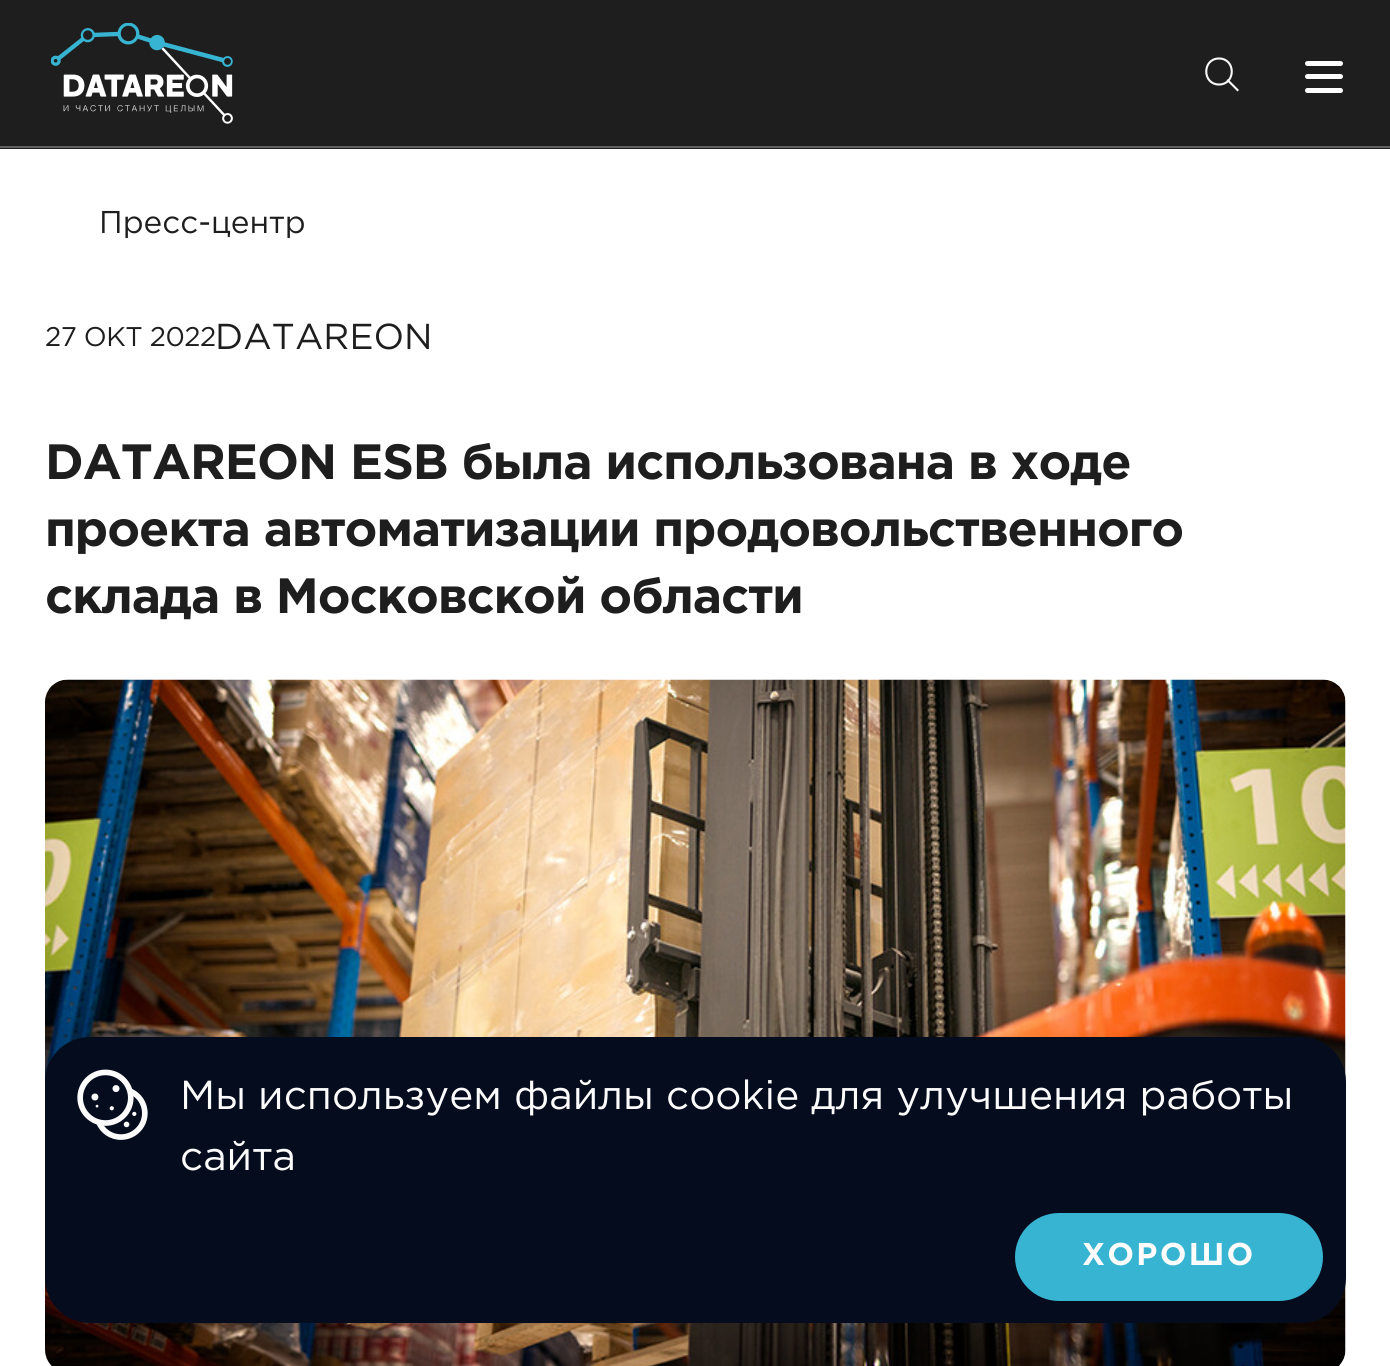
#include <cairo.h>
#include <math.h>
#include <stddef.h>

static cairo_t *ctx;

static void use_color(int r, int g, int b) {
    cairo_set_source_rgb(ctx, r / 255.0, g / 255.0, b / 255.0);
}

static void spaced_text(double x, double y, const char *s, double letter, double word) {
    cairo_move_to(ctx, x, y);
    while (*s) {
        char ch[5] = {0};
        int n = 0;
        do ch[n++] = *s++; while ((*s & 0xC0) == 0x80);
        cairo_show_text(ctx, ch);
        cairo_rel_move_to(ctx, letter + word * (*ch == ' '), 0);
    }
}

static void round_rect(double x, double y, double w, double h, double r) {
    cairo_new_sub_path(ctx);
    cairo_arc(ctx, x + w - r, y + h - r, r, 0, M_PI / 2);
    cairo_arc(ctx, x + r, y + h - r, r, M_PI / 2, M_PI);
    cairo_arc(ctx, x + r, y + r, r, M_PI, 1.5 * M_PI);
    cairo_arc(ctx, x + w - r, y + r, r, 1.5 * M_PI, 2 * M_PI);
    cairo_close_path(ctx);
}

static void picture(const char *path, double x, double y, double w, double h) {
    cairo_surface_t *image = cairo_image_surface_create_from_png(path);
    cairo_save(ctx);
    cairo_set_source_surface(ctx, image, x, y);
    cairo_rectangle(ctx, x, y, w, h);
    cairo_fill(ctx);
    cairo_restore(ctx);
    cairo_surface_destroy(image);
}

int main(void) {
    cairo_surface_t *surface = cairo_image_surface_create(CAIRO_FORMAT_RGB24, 1390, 1366);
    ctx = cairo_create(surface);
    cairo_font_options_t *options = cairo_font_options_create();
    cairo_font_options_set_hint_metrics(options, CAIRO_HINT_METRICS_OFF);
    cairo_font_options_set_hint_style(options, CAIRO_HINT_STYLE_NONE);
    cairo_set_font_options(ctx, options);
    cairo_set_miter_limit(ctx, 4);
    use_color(255, 255, 255);
    cairo_paint(ctx);
    use_color(30, 30, 30);
    cairo_rectangle(ctx, 0, 0, 1390, 149);
    cairo_fill(ctx);
    use_color(97, 97, 97);
    cairo_rectangle(ctx, 0, 146, 1390, 2);
    cairo_fill(ctx);
    picture("img1.png", 51, 23, 182, 101);
    cairo_new_path(ctx);
    cairo_move_to(ctx, 1219, 58.5);
    cairo_curve_to(ctx, 1202, 58.5, 1202, 84.5, 1219, 84.5);
    cairo_curve_to(ctx, 1236, 84.5, 1236, 58.5, 1219, 58.5);
    cairo_close_path(ctx);
    use_color(249, 249, 249);
    cairo_set_line_width(ctx, 2.1);
    cairo_stroke(ctx);
    cairo_new_path(ctx);
    cairo_move_to(ctx, 1237.5, 90);
    cairo_line_to(ctx, 1228, 80.5);
    cairo_set_line_cap(ctx, CAIRO_LINE_CAP_SQUARE);
    cairo_stroke(ctx);
    use_color(255, 255, 255);
    round_rect(1305, 61, 38, 5, 2.5);
    cairo_fill(ctx);
    round_rect(1305, 74, 38, 5, 2.5);
    cairo_fill(ctx);
    round_rect(1305, 88, 38, 5, 2.5);
    cairo_fill(ctx);
    cairo_select_font_face(ctx, "Gotham", CAIRO_FONT_SLANT_NORMAL, CAIRO_FONT_WEIGHT_NORMAL);
    cairo_set_font_size(ctx, 31.5);
    use_color(30, 30, 30);
    cairo_move_to(ctx, 99, 233);
    cairo_show_text(ctx, "Пресс-центр");
    cairo_set_font_size(ctx, 27);
    spaced_text(45, 346, "27 ОКТ 2022", -0.5, 0);
    cairo_set_font_size(ctx, 36);
    cairo_move_to(ctx, 215, 349);
    cairo_show_text(ctx, "DATAREON");
    cairo_select_font_face(ctx, "Gotham", CAIRO_FONT_SLANT_NORMAL, CAIRO_FONT_WEIGHT_BOLD);
    cairo_set_font_size(ctx, 49.5);
    spaced_text(45, 479, "DATAREON ESB была использована в ходе", -1, 0);
    spaced_text(45, 546, "проекта автоматизации продовольственного", -1, 0);
    spaced_text(45, 613, "склада в Московской области", -1, 0);
    picture("img2.png", 45, 679, 1301, 687);
    use_color(5, 12, 30);
    round_rect(45, 1037, 1301, 286, 45);
    cairo_fill(ctx);
    picture("img3.png", 77, 1069, 71, 71);
    cairo_select_font_face(ctx, "Gotham", CAIRO_FONT_SLANT_NORMAL, CAIRO_FONT_WEIGHT_NORMAL);
    cairo_set_font_size(ctx, 40.5);
    use_color(252, 252, 252);
    cairo_move_to(ctx, 180, 1109);
    cairo_show_text(ctx, "Мы используем файлы cookie для улучшения работы");
    cairo_move_to(ctx, 180, 1170);
    cairo_show_text(ctx, "сайта");
    use_color(55, 180, 210);
    round_rect(1015, 1213, 308, 88, 44);
    cairo_fill(ctx);
    cairo_select_font_face(ctx, "Gotham", CAIRO_FONT_SLANT_NORMAL, CAIRO_FONT_WEIGHT_BOLD);
    cairo_set_font_size(ctx, 31.5);
    use_color(252, 252, 252);
    spaced_text(1082, 1265, "ХОРОШО", 2.25, 0);
    cairo_surface_write_to_png(surface, "result.png");
    cairo_font_options_destroy(options);
    cairo_destroy(ctx);
    cairo_surface_destroy(surface);
    return 0;
}
